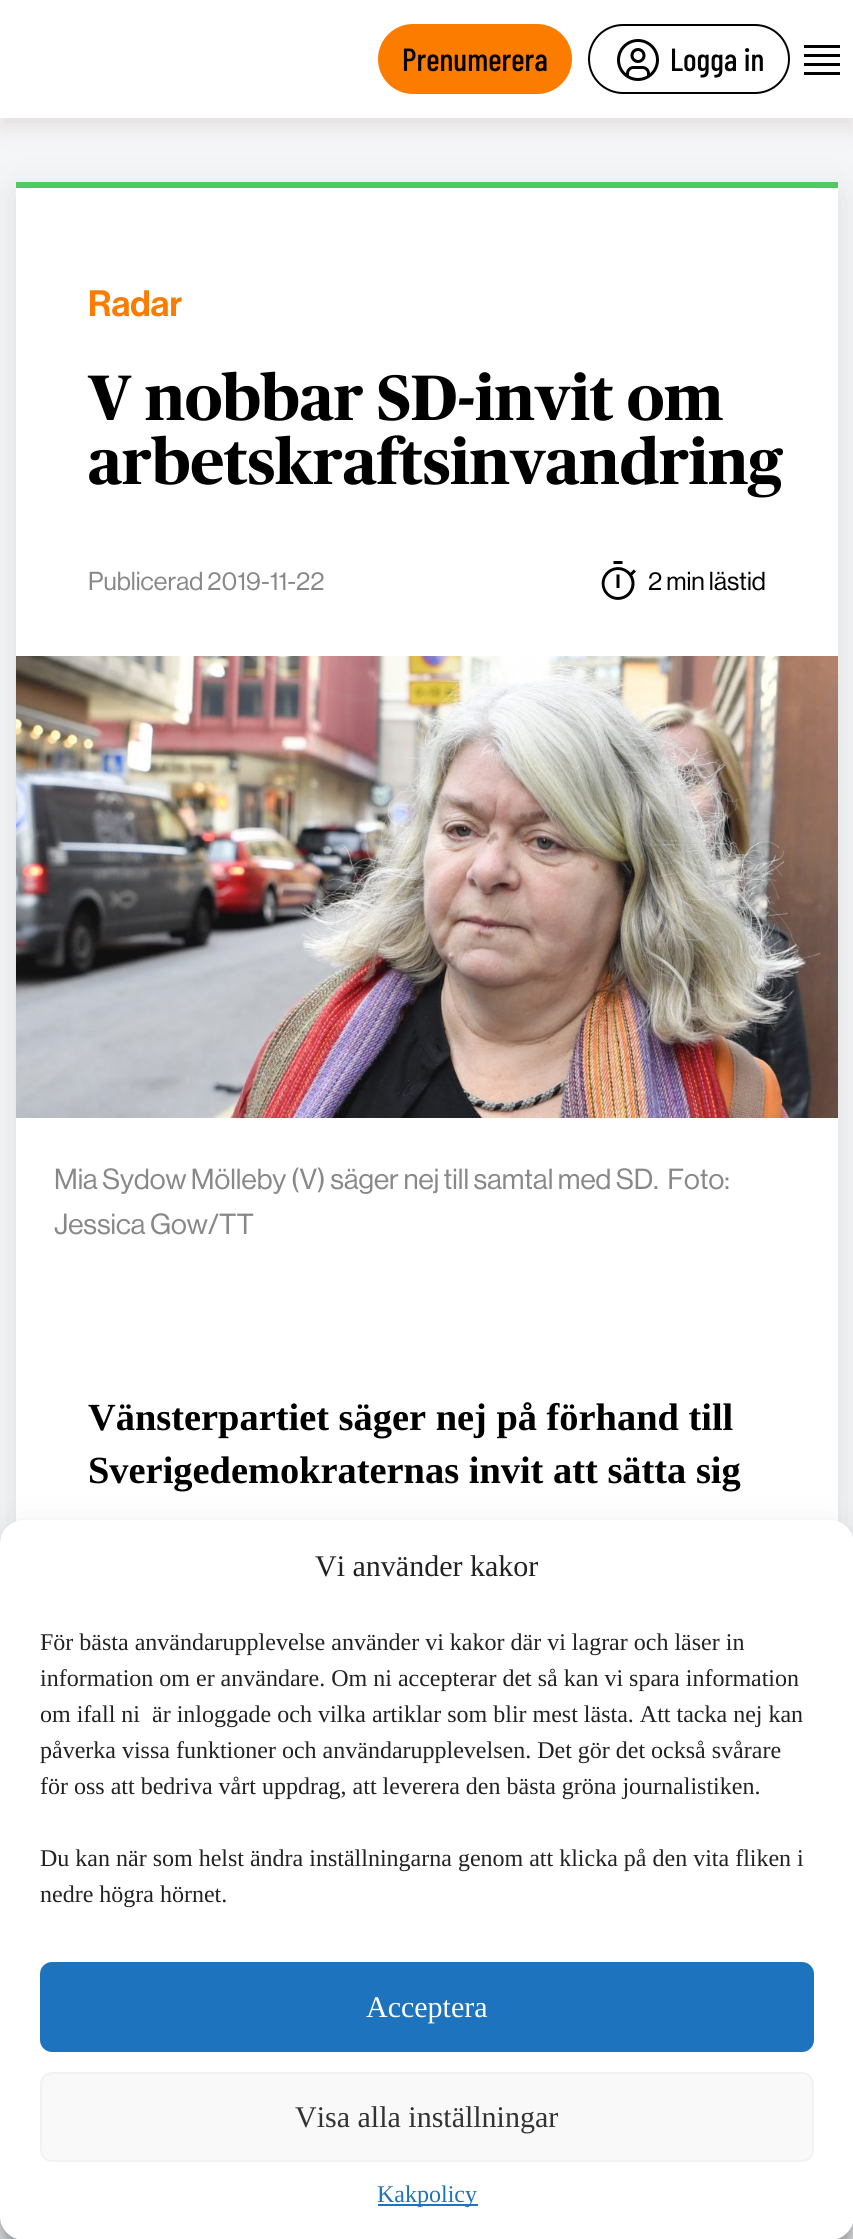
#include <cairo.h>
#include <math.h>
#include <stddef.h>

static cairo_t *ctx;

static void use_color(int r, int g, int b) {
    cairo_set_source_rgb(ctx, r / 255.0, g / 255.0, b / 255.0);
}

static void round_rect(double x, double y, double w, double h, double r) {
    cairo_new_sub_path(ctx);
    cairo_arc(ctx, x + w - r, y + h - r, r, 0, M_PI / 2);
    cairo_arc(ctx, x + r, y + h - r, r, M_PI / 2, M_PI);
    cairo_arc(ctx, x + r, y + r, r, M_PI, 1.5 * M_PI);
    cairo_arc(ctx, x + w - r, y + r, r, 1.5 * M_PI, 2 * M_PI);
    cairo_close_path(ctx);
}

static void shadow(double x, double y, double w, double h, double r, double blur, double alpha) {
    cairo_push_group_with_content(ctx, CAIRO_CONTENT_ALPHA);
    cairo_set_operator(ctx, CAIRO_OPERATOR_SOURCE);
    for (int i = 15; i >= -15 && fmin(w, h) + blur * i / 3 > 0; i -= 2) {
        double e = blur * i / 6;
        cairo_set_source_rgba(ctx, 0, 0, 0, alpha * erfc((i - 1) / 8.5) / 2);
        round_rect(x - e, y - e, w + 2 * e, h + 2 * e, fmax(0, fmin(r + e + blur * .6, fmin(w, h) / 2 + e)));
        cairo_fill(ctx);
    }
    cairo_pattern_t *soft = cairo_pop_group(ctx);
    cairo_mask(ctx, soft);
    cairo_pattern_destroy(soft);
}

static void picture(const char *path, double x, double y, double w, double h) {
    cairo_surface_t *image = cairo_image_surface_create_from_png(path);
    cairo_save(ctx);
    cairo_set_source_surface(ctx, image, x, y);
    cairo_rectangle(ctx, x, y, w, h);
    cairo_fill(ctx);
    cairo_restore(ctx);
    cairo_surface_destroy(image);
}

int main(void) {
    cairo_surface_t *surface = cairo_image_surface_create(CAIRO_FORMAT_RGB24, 853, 2239);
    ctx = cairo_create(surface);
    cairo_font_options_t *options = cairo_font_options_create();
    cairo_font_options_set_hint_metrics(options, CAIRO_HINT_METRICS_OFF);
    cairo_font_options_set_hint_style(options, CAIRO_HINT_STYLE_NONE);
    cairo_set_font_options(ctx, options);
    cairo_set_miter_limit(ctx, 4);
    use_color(245, 246, 248);
    cairo_paint(ctx);
    use_color(225, 219, 219);
    shadow(0, 10, 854, 118, 0, 10, 0.8);
    use_color(255, 255, 255);
    cairo_rectangle(ctx, 0, 0, 853, 118);
    cairo_fill(ctx);
    use_color(252, 124, 0);
    round_rect(378, 24, 194, 70, 35);
    cairo_fill(ctx);
    cairo_select_font_face(ctx, "Barlow Condensed Medium", CAIRO_FONT_SLANT_NORMAL, CAIRO_FONT_WEIGHT_NORMAL);
    cairo_set_font_size(ctx, 32);
    use_color(0, 0, 0);
    cairo_move_to(ctx, 402, 71);
    cairo_show_text(ctx, "Prenumerera");
    round_rect(589, 25, 200, 68, 34);
    cairo_stroke(ctx);
    picture("img1.png", 617, 39, 42, 42);
    cairo_move_to(ctx, 670, 71);
    cairo_show_text(ctx, "Logga in");
    cairo_rectangle(ctx, 804, 45, 36, 3);
    cairo_fill(ctx);
    cairo_rectangle(ctx, 804, 72, 36, 3);
    cairo_fill(ctx);
    cairo_rectangle(ctx, 804, 54, 36, 3);
    cairo_fill(ctx);
    cairo_rectangle(ctx, 804, 63, 36, 3);
    cairo_fill(ctx);
    use_color(0, 0, 0);
    shadow(16, 194, 822, 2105, 0, 20, 0.1);
    use_color(255, 255, 255);
    cairo_rectangle(ctx, 16, 188, 822, 2051);
    cairo_fill(ctx);
    use_color(77, 202, 96);
    cairo_rectangle(ctx, 16, 182, 822, 6);
    cairo_fill(ctx);
    cairo_select_font_face(ctx, "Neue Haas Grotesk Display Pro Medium", CAIRO_FONT_SLANT_NORMAL, CAIRO_FONT_WEIGHT_NORMAL);
    cairo_set_font_size(ctx, 36);
    use_color(252, 124, 0);
    cairo_move_to(ctx, 88, 316);
    cairo_show_text(ctx, "Radar");
    cairo_select_font_face(ctx, "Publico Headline", CAIRO_FONT_SLANT_NORMAL, CAIRO_FONT_WEIGHT_BOLD);
    cairo_set_font_size(ctx, 64);
    use_color(0, 0, 0);
    cairo_move_to(ctx, 88, 420);
    cairo_show_text(ctx, "V nobbar SD-invit om");
    cairo_move_to(ctx, 88, 484);
    cairo_show_text(ctx, "arbetskraftsinvandring");
    cairo_select_font_face(ctx, "Neue Haas Grotesk Display Pro", CAIRO_FONT_SLANT_NORMAL, CAIRO_FONT_WEIGHT_NORMAL);
    cairo_set_font_size(ctx, 25.5);
    use_color(136, 136, 136);
    cairo_move_to(ctx, 88, 590);
    cairo_show_text(ctx, "Publicerad 2019-11-22");
    picture("img2.png", 601, 561, 35, 39);
    use_color(0, 0, 0);
    cairo_move_to(ctx, 648, 590);
    cairo_show_text(ctx, "2 min lästid");
    picture("img3.png", 16, 656, 822, 462);
    cairo_set_font_size(ctx, 28.5);
    use_color(136, 136, 136);
    cairo_move_to(ctx, 54, 1189);
    cairo_show_text(ctx, "Mia Sydow Mölleby (V) säger nej till samtal med SD.  Foto:");
    cairo_move_to(ctx, 54, 1234);
    cairo_show_text(ctx, "Jessica Gow/TT");
    cairo_select_font_face(ctx, "Liberation Serif", CAIRO_FONT_SLANT_NORMAL, CAIRO_FONT_WEIGHT_BOLD);
    cairo_set_font_size(ctx, 38.4);
    use_color(0, 0, 0);
    cairo_move_to(ctx, 88, 1430);
    cairo_show_text(ctx, "Vänsterpartiet säger nej på förhand till");
    cairo_move_to(ctx, 88, 1483);
    cairo_show_text(ctx, "Sverigedemokraternas invit att sätta sig");
    use_color(0, 0, 0);
    shadow(0, 1532, 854, 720, 24, 6, 0.23);
    shadow(0, 1540, 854, 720, 24, 20, 0.19);
    use_color(255, 255, 255);
    round_rect(0, 1520, 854, 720, 24);
    cairo_fill(ctx);
    cairo_select_font_face(ctx, "Liberation Serif", CAIRO_FONT_SLANT_NORMAL, CAIRO_FONT_WEIGHT_NORMAL);
    cairo_set_font_size(ctx, 30);
    use_color(34, 34, 34);
    cairo_move_to(ctx, 315, 1576);
    cairo_show_text(ctx, "Vi använder kakor");
    cairo_set_font_size(ctx, 24);
    cairo_move_to(ctx, 40, 1650);
    cairo_show_text(ctx, "För bästa användarupplevelse använder vi kakor där vi lagrar och läser in");
    cairo_move_to(ctx, 40, 1686);
    cairo_show_text(ctx, "information om er användare. Om ni accepterar det så kan vi spara information");
    cairo_move_to(ctx, 40, 1722);
    cairo_show_text(ctx, "om ifall ni  är inloggade och vilka artiklar som blir mest lästa. Att tacka nej kan");
    cairo_move_to(ctx, 40, 1758);
    cairo_show_text(ctx, "påverka vissa funktioner och användarupplevelsen. Det gör det också svårare");
    cairo_move_to(ctx, 40, 1794);
    cairo_show_text(ctx, "för oss att bedriva vårt uppdrag, att leverera den bästa gröna journalistiken.");
    cairo_move_to(ctx, 40, 1866);
    cairo_show_text(ctx, "Du kan när som helst ändra inställningarna genom att klicka på den vita fliken i");
    cairo_move_to(ctx, 40, 1902);
    cairo_show_text(ctx, "nedre högra hörnet.");
    use_color(30, 115, 190);
    round_rect(41, 1963, 772, 88, 11);
    cairo_fill_preserve(ctx);
    cairo_stroke(ctx);
    cairo_set_font_size(ctx, 30);
    use_color(255, 255, 255);
    cairo_move_to(ctx, 366, 2017);
    cairo_show_text(ctx, "Acceptera");
    use_color(249, 249, 249);
    round_rect(41, 2073, 772, 88, 11);
    cairo_fill_preserve(ctx);
    use_color(242, 242, 242);
    cairo_stroke(ctx);
    use_color(51, 51, 51);
    cairo_move_to(ctx, 295, 2127);
    cairo_show_text(ctx, "Visa alla inställningar");
    use_color(30, 115, 190);
    cairo_rectangle(ctx, 378, 2204, 100, 2);
    cairo_fill(ctx);
    cairo_set_font_size(ctx, 24);
    cairo_move_to(ctx, 377, 2202);
    cairo_show_text(ctx, "Kakpolicy");
    cairo_surface_write_to_png(surface, "result.png");
    cairo_font_options_destroy(options);
    cairo_destroy(ctx);
    cairo_surface_destroy(surface);
    return 0;
}
